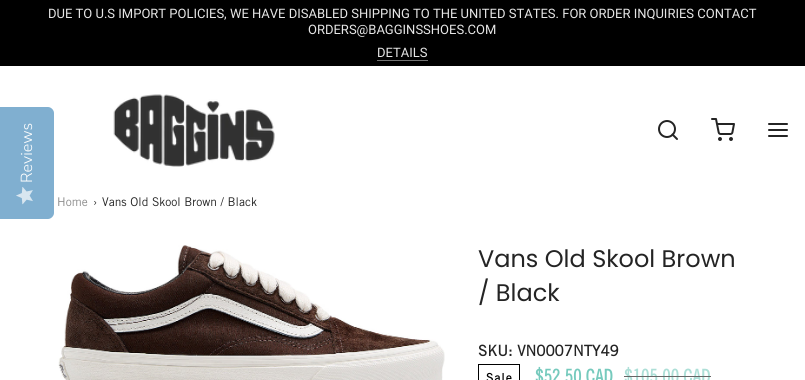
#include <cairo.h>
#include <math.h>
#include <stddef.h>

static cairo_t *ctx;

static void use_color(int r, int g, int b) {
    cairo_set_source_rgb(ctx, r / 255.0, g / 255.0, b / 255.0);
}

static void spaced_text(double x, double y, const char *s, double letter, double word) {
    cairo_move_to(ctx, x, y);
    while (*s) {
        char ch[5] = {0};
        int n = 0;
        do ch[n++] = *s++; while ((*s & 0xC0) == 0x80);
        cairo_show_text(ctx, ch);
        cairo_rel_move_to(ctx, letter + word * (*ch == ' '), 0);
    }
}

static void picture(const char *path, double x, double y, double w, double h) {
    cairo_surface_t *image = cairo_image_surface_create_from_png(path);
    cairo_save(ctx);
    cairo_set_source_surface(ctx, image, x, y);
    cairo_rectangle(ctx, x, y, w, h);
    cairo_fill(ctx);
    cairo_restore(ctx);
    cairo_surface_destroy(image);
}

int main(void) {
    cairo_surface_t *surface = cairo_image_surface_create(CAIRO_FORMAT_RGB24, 805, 380);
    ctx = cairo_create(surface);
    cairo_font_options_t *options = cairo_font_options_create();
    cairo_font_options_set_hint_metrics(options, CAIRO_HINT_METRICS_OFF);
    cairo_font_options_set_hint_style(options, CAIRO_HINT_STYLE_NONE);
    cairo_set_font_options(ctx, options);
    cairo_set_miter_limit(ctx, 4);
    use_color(255, 255, 255);
    cairo_paint(ctx);
    use_color(0, 0, 0);
    cairo_rectangle(ctx, 0, 0, 805, 66);
    cairo_fill(ctx);
    cairo_select_font_face(ctx, "Roboto", CAIRO_FONT_SLANT_NORMAL, CAIRO_FONT_WEIGHT_NORMAL);
    cairo_set_font_size(ctx, 13);
    use_color(230, 230, 230);
    cairo_move_to(ctx, 48, 18);
    cairo_show_text(ctx, "DUE TO U.S IMPORT POLICIES, WE HAVE DISABLED SHIPPING TO THE UNITED STATES. FOR ORDER INQUIRIES CONTACT");
    cairo_move_to(ctx, 308, 34);
    cairo_show_text(ctx, "ORDERS@BAGGINSSHOES.COM");
    cairo_move_to(ctx, 377, 57);
    cairo_show_text(ctx, "DETAILS");
    use_color(115, 115, 115);
    cairo_rectangle(ctx, 377, 60, 51, 1);
    cairo_fill(ctx);
    use_color(128, 175, 208);
    cairo_new_path(ctx);
    cairo_move_to(ctx, 0, 219);
    cairo_line_to(ctx, 0, 107);
    cairo_line_to(ctx, 48, 107);
    cairo_curve_to(ctx, 51, 107, 54, 110, 54, 113);
    cairo_line_to(ctx, 54, 213);
    cairo_curve_to(ctx, 54, 216, 51, 219, 48, 219);
    cairo_close_path(ctx);
    cairo_fill(ctx);
    cairo_select_font_face(ctx, "Nunito Sans Light", CAIRO_FONT_SLANT_NORMAL, CAIRO_FONT_WEIGHT_NORMAL);
    cairo_set_font_size(ctx, 16);
    use_color(254, 254, 254);
    cairo_save(ctx);
    cairo_translate(ctx, 32, 183);
    cairo_rotate(ctx, -90 * M_PI / 180);
    cairo_move_to(ctx, 0, 0);
    cairo_show_text(ctx, "Reviews");
    cairo_restore(ctx);
    picture("img1.png", 16, 187, 17, 18);
    picture("img2.png", 113, 94, 162, 73);
    cairo_arc(ctx, 667, 129, 8, 0, 2 * M_PI);
    use_color(36, 36, 36);
    cairo_stroke(ctx);
    cairo_new_path(ctx);
    cairo_move_to(ctx, 677, 139);
    cairo_line_to(ctx, 672.5, 134.5);
    cairo_set_line_cap(ctx, CAIRO_LINE_CAP_ROUND);
    cairo_set_line_join(ctx, CAIRO_LINE_JOIN_ROUND);
    cairo_stroke(ctx);
    picture("img3.png", 711, 118, 24, 23);
    cairo_new_path(ctx);
    cairo_move_to(ctx, 769, 130);
    cairo_line_to(ctx, 787, 130);
    cairo_move_to(ctx, 769, 124);
    cairo_line_to(ctx, 787, 124);
    cairo_move_to(ctx, 769, 136);
    cairo_line_to(ctx, 787, 136);
    cairo_stroke(ctx);
    cairo_select_font_face(ctx, "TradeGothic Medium", CAIRO_FONT_SLANT_NORMAL, CAIRO_FONT_WEIGHT_NORMAL);
    cairo_set_font_size(ctx, 12);
    use_color(138, 138, 138);
    cairo_move_to(ctx, 57, 206);
    cairo_show_text(ctx, "Home");
    use_color(36, 36, 36);
    cairo_move_to(ctx, 93, 206);
    cairo_show_text(ctx, "›");
    cairo_move_to(ctx, 102, 206);
    cairo_show_text(ctx, "Vans Old Skool Brown / Black");
    picture("img4.png", 58, 245, 387, 135);
    cairo_select_font_face(ctx, "Poppins", CAIRO_FONT_SLANT_NORMAL, CAIRO_FONT_WEIGHT_NORMAL);
    cairo_set_font_size(ctx, 24);
    cairo_move_to(ctx, 478, 267);
    cairo_show_text(ctx, "Vans Old Skool Brown");
    cairo_move_to(ctx, 478, 301);
    cairo_show_text(ctx, "/ Black");
    cairo_select_font_face(ctx, "TradeGothic", CAIRO_FONT_SLANT_NORMAL, CAIRO_FONT_WEIGHT_BOLD);
    cairo_set_font_size(ctx, 15);
    cairo_move_to(ctx, 478, 356);
    cairo_show_text(ctx, "SKU: VN0007NTY49");
    cairo_rectangle(ctx, 478.5, 364.5, 41, 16);
    use_color(0, 0, 0);
    cairo_set_line_width(ctx, 1);
    cairo_set_line_cap(ctx, CAIRO_LINE_CAP_BUTT);
    cairo_set_line_join(ctx, CAIRO_LINE_JOIN_MITER);
    cairo_stroke(ctx);
    cairo_set_font_size(ctx, 12);
    spaced_text(486, 382, "Sale", 1, 0);
    cairo_select_font_face(ctx, "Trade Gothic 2", CAIRO_FONT_SLANT_NORMAL, CAIRO_FONT_WEIGHT_BOLD);
    cairo_set_font_size(ctx, 19);
    use_color(118, 202, 189);
    cairo_move_to(ctx, 535, 383);
    cairo_show_text(ctx, "$52.50 CAD");
    use_color(173, 223, 215);
    cairo_move_to(ctx, 624, 383);
    cairo_show_text(ctx, "$105.00 CAD");
    use_color(102, 102, 102);
    cairo_rectangle(ctx, 624, 376, 87, 1);
    cairo_fill(ctx);
    cairo_surface_write_to_png(surface, "result.png");
    cairo_font_options_destroy(options);
    cairo_destroy(ctx);
    cairo_surface_destroy(surface);
    return 0;
}
